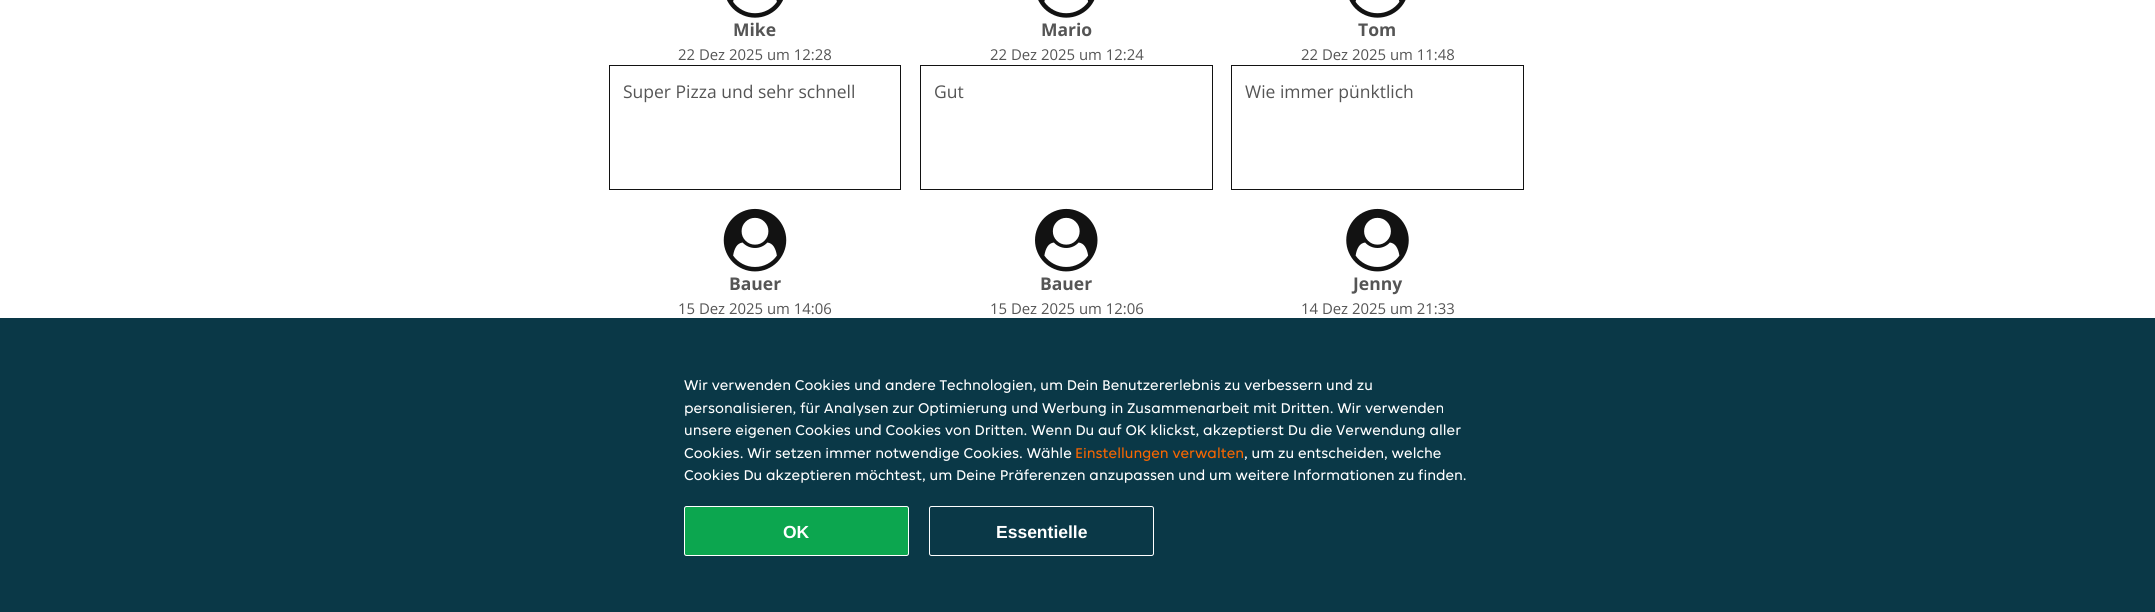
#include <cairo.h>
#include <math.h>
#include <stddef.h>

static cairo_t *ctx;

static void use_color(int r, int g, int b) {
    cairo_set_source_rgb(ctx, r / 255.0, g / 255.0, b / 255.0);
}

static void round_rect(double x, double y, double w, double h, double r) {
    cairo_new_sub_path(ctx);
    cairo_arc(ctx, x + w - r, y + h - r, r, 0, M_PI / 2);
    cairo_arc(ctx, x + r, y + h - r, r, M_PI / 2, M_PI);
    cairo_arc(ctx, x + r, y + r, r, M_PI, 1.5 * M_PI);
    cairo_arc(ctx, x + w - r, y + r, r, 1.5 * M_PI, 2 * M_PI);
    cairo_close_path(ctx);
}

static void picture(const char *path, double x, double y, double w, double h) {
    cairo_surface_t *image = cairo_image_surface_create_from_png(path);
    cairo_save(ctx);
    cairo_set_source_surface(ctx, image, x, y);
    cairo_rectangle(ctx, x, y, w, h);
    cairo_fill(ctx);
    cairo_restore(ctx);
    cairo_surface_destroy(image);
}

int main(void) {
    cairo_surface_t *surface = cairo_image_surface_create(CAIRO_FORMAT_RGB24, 2155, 612);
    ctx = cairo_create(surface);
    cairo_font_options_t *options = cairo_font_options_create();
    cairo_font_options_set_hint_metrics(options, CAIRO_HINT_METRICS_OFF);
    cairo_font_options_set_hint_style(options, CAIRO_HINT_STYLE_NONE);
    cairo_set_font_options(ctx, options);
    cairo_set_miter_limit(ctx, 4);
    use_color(255, 255, 255);
    cairo_paint(ctx);
    picture("img1.png", 727, 0, 56, 18);
    cairo_select_font_face(ctx, "Open Sans", CAIRO_FONT_SLANT_NORMAL, CAIRO_FONT_WEIGHT_BOLD);
    cairo_set_font_size(ctx, 17.5);
    use_color(85, 85, 85);
    cairo_move_to(ctx, 733, 36);
    cairo_show_text(ctx, "Mike");
    cairo_select_font_face(ctx, "Open Sans", CAIRO_FONT_SLANT_NORMAL, CAIRO_FONT_WEIGHT_NORMAL);
    cairo_set_font_size(ctx, 14.9);
    cairo_move_to(ctx, 678, 60);
    cairo_show_text(ctx, "22 Dez 2025 um 12:28");
    cairo_rectangle(ctx, 609.5, 65.5, 291, 124);
    use_color(18, 18, 18);
    cairo_set_line_width(ctx, 1);
    cairo_stroke(ctx);
    cairo_set_font_size(ctx, 17.5);
    use_color(85, 85, 85);
    cairo_move_to(ctx, 623, 98);
    cairo_show_text(ctx, "Super Pizza und sehr schnell");
    picture("img2.png", 1038, 0, 57, 18);
    cairo_select_font_face(ctx, "Open Sans", CAIRO_FONT_SLANT_NORMAL, CAIRO_FONT_WEIGHT_BOLD);
    cairo_move_to(ctx, 1041, 36);
    cairo_show_text(ctx, "Mario");
    cairo_select_font_face(ctx, "Open Sans", CAIRO_FONT_SLANT_NORMAL, CAIRO_FONT_WEIGHT_NORMAL);
    cairo_set_font_size(ctx, 14.9);
    cairo_move_to(ctx, 990, 60);
    cairo_show_text(ctx, "22 Dez 2025 um 12:24");
    cairo_rectangle(ctx, 920.5, 65.5, 292, 124);
    use_color(18, 18, 18);
    cairo_stroke(ctx);
    cairo_set_font_size(ctx, 17.5);
    use_color(85, 85, 85);
    cairo_move_to(ctx, 934, 98);
    cairo_show_text(ctx, "Gut");
    picture("img3.png", 1349, 0, 57, 18);
    cairo_select_font_face(ctx, "Open Sans", CAIRO_FONT_SLANT_NORMAL, CAIRO_FONT_WEIGHT_BOLD);
    cairo_move_to(ctx, 1358, 36);
    cairo_show_text(ctx, "Tom");
    cairo_select_font_face(ctx, "Open Sans", CAIRO_FONT_SLANT_NORMAL, CAIRO_FONT_WEIGHT_NORMAL);
    cairo_set_font_size(ctx, 14.9);
    cairo_move_to(ctx, 1301, 60);
    cairo_show_text(ctx, "22 Dez 2025 um 11:48");
    cairo_rectangle(ctx, 1231.5, 65.5, 292, 124);
    use_color(18, 18, 18);
    cairo_stroke(ctx);
    cairo_set_font_size(ctx, 17.5);
    use_color(85, 85, 85);
    cairo_move_to(ctx, 1245, 98);
    cairo_show_text(ctx, "Wie immer pünktlich");
    picture("img4.png", 723, 208, 64, 64);
    cairo_select_font_face(ctx, "Open Sans", CAIRO_FONT_SLANT_NORMAL, CAIRO_FONT_WEIGHT_BOLD);
    cairo_move_to(ctx, 729, 290);
    cairo_show_text(ctx, "Bauer");
    cairo_select_font_face(ctx, "Open Sans", CAIRO_FONT_SLANT_NORMAL, CAIRO_FONT_WEIGHT_NORMAL);
    cairo_set_font_size(ctx, 14.9);
    cairo_move_to(ctx, 678, 314);
    cairo_show_text(ctx, "15 Dez 2025 um 14:06");
    picture("img5.png", 1035, 208, 63, 64);
    cairo_select_font_face(ctx, "Open Sans", CAIRO_FONT_SLANT_NORMAL, CAIRO_FONT_WEIGHT_BOLD);
    cairo_set_font_size(ctx, 17.5);
    cairo_move_to(ctx, 1040, 290);
    cairo_show_text(ctx, "Bauer");
    cairo_select_font_face(ctx, "Open Sans", CAIRO_FONT_SLANT_NORMAL, CAIRO_FONT_WEIGHT_NORMAL);
    cairo_set_font_size(ctx, 14.9);
    cairo_move_to(ctx, 990, 314);
    cairo_show_text(ctx, "15 Dez 2025 um 12:06");
    picture("img6.png", 1346, 208, 63, 64);
    cairo_select_font_face(ctx, "Open Sans", CAIRO_FONT_SLANT_NORMAL, CAIRO_FONT_WEIGHT_BOLD);
    cairo_set_font_size(ctx, 17.5);
    cairo_move_to(ctx, 1353, 290);
    cairo_show_text(ctx, "Jenny");
    cairo_select_font_face(ctx, "Open Sans", CAIRO_FONT_SLANT_NORMAL, CAIRO_FONT_WEIGHT_NORMAL);
    cairo_set_font_size(ctx, 14.9);
    cairo_move_to(ctx, 1301, 314);
    cairo_show_text(ctx, "14 Dez 2025 um 21:33");
    use_color(10, 56, 71);
    cairo_rectangle(ctx, 0, 318, 2155, 294);
    cairo_fill(ctx);
    cairo_select_font_face(ctx, "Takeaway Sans", CAIRO_FONT_SLANT_NORMAL, CAIRO_FONT_WEIGHT_NORMAL);
    cairo_set_font_size(ctx, 15);
    use_color(255, 255, 255);
    cairo_move_to(ctx, 684, 390);
    cairo_show_text(ctx, "Wir verwenden Cookies und andere Technologien, um Dein Benutzererlebnis zu verbessern und zu");
    cairo_move_to(ctx, 684, 413);
    cairo_show_text(ctx, "personalisieren, für Analysen zur Optimierung und Werbung in Zusammenarbeit mit Dritten. Wir verwenden");
    cairo_move_to(ctx, 684, 435);
    cairo_show_text(ctx, "unsere eigenen Cookies und Cookies von Dritten. Wenn Du auf OK klickst, akzeptierst Du die Verwendung aller");
    cairo_move_to(ctx, 684, 458);
    cairo_show_text(ctx, "Cookies. Wir setzen immer notwendige Cookies. Wähle");
    use_color(248, 102, 0);
    cairo_move_to(ctx, 1075, 458);
    cairo_show_text(ctx, "Einstellungen verwalten");
    use_color(255, 255, 255);
    cairo_move_to(ctx, 1244, 458);
    cairo_show_text(ctx, ", um zu entscheiden, welche");
    cairo_move_to(ctx, 684, 480);
    cairo_show_text(ctx, "Cookies Du akzeptieren möchtest, um Deine Präferenzen anzupassen und um weitere Informationen zu finden.");
    use_color(12, 166, 79);
    round_rect(684.5, 506.5, 224, 49, 2);
    cairo_fill_preserve(ctx);
    use_color(255, 255, 255);
    cairo_stroke(ctx);
    cairo_select_font_face(ctx, "Liberation Sans", CAIRO_FONT_SLANT_NORMAL, CAIRO_FONT_WEIGHT_BOLD);
    cairo_set_font_size(ctx, 17.5);
    cairo_move_to(ctx, 783, 538);
    cairo_show_text(ctx, "OK");
    round_rect(929.5, 506.5, 224, 49, 2);
    cairo_stroke(ctx);
    cairo_move_to(ctx, 996, 538);
    cairo_show_text(ctx, "Essentielle");
    cairo_surface_write_to_png(surface, "result.png");
    cairo_font_options_destroy(options);
    cairo_destroy(ctx);
    cairo_surface_destroy(surface);
    return 0;
}
